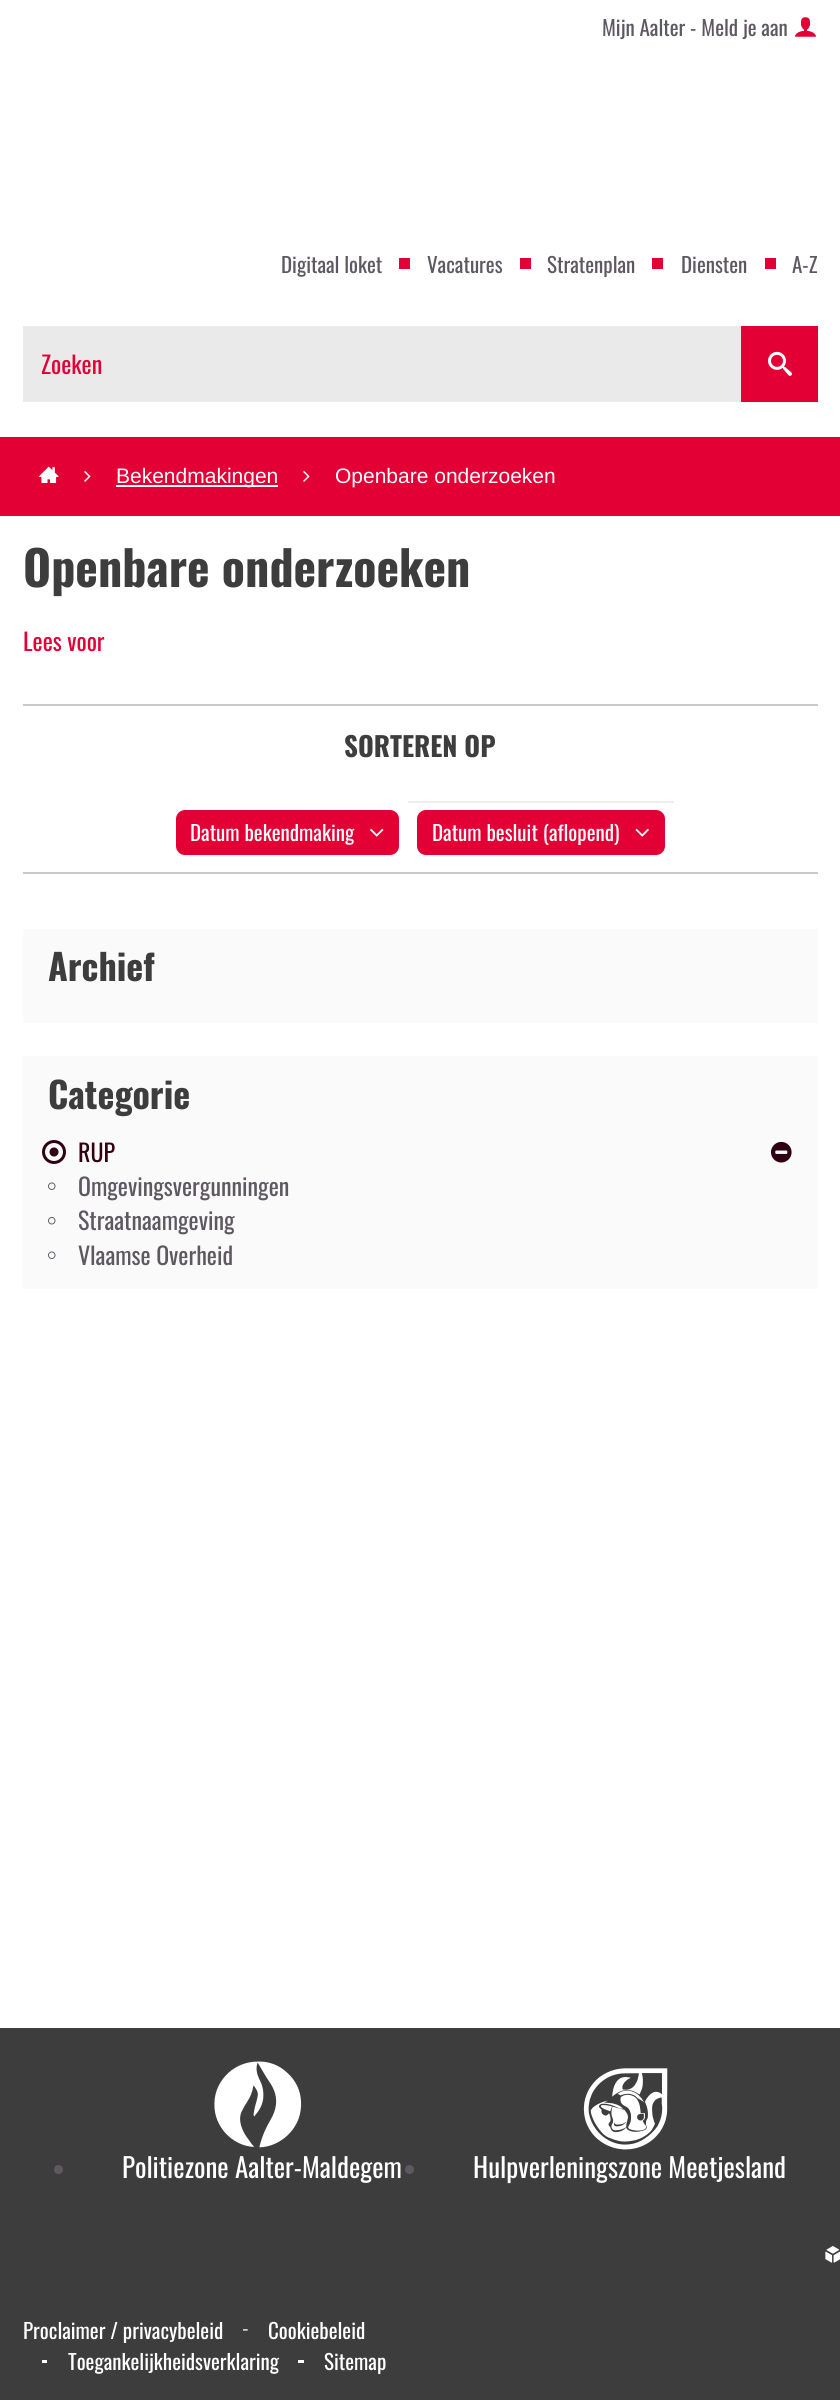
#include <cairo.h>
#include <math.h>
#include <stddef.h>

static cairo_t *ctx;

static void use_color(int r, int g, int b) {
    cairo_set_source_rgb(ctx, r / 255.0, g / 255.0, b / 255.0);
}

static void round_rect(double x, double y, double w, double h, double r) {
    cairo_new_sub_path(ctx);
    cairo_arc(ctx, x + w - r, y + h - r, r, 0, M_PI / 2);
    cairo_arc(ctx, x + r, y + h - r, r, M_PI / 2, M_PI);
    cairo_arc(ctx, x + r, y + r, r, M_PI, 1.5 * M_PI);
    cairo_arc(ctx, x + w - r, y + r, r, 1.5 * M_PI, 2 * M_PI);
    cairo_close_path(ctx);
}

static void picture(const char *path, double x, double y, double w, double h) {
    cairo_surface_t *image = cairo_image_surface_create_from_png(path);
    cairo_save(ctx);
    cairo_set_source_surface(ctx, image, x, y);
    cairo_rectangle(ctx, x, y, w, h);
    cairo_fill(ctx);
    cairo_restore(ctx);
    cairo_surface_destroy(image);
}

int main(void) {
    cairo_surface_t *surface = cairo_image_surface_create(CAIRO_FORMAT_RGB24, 840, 2400);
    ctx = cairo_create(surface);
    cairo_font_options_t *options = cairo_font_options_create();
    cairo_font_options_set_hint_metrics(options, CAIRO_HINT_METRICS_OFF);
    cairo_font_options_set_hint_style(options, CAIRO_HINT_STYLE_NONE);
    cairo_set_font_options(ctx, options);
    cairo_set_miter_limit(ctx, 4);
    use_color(255, 255, 255);
    cairo_paint(ctx);
    cairo_select_font_face(ctx, "Oswald", CAIRO_FONT_SLANT_NORMAL, CAIRO_FONT_WEIGHT_NORMAL);
    cairo_set_font_size(ctx, 21);
    use_color(94, 88, 96);
    cairo_move_to(ctx, 602, 36);
    cairo_show_text(ctx, "Mijn Aalter - Meld je aan");
    picture("img1.png", 795, 17, 21, 20);
    cairo_move_to(ctx, 281, 273);
    cairo_show_text(ctx, "Digitaal loket");
    use_color(226, 0, 52);
    cairo_rectangle(ctx, 399, 258, 11, 11);
    cairo_fill(ctx);
    use_color(94, 88, 96);
    cairo_move_to(ctx, 427, 273);
    cairo_show_text(ctx, "Vacatures");
    use_color(226, 0, 52);
    cairo_rectangle(ctx, 520, 258, 11, 11);
    cairo_fill(ctx);
    use_color(94, 88, 96);
    cairo_move_to(ctx, 547, 273);
    cairo_show_text(ctx, "Stratenplan");
    use_color(226, 0, 52);
    cairo_rectangle(ctx, 652, 258, 11, 11);
    cairo_fill(ctx);
    use_color(94, 88, 96);
    cairo_move_to(ctx, 681, 273);
    cairo_show_text(ctx, "Diensten");
    use_color(226, 0, 52);
    cairo_rectangle(ctx, 765, 258, 11, 11);
    cairo_fill(ctx);
    use_color(94, 88, 96);
    cairo_move_to(ctx, 792, 273);
    cairo_show_text(ctx, "A-Z");
    use_color(234, 234, 234);
    cairo_rectangle(ctx, 23, 326, 718, 76);
    cairo_fill(ctx);
    cairo_set_font_size(ctx, 24);
    use_color(226, 0, 52);
    cairo_move_to(ctx, 41, 374);
    cairo_show_text(ctx, "Zoeken");
    cairo_rectangle(ctx, 741, 326, 77, 76);
    cairo_fill(ctx);
    picture("img2.png", 768, 351, 24, 25);
    cairo_rectangle(ctx, 0, 437, 840, 79);
    cairo_fill(ctx);
    picture("img3.png", 39, 466, 20, 17);
    picture("img4.png", 84, 471, 7, 11);
    use_color(255, 255, 255);
    cairo_rectangle(ctx, 116, 485, 162, 2);
    cairo_fill(ctx);
    cairo_select_font_face(ctx, "Liberation Sans", CAIRO_FONT_SLANT_NORMAL, CAIRO_FONT_WEIGHT_NORMAL);
    cairo_set_font_size(ctx, 21);
    cairo_move_to(ctx, 116, 483);
    cairo_show_text(ctx, "Bekendmakingen");
    picture("img4.png", 303, 471, 7, 11);
    cairo_move_to(ctx, 335, 483);
    cairo_show_text(ctx, "Openbare onderzoeken");
    cairo_select_font_face(ctx, "Oswald", CAIRO_FONT_SLANT_NORMAL, CAIRO_FONT_WEIGHT_BOLD);
    cairo_set_font_size(ctx, 48);
    use_color(61, 61, 61);
    cairo_move_to(ctx, 23, 587);
    cairo_show_text(ctx, "Openbare onderzoeken");
    cairo_select_font_face(ctx, "Oswald", CAIRO_FONT_SLANT_NORMAL, CAIRO_FONT_WEIGHT_NORMAL);
    cairo_set_font_size(ctx, 24);
    use_color(226, 0, 52);
    cairo_move_to(ctx, 23, 651);
    cairo_show_text(ctx, "Lees voor");
    use_color(200, 200, 200);
    cairo_rectangle(ctx, 23, 704, 795, 2);
    cairo_fill(ctx);
    cairo_rectangle(ctx, 23, 872, 795, 2);
    cairo_fill(ctx);
    cairo_select_font_face(ctx, "Oswald", CAIRO_FONT_SLANT_NORMAL, CAIRO_FONT_WEIGHT_BOLD);
    cairo_set_font_size(ctx, 27);
    use_color(61, 61, 61);
    cairo_move_to(ctx, 344, 757);
    cairo_show_text(ctx, "SORTEREN OP");
    use_color(226, 0, 52);
    round_rect(176, 810, 223, 45, 9);
    cairo_fill(ctx);
    cairo_select_font_face(ctx, "Oswald", CAIRO_FONT_SLANT_NORMAL, CAIRO_FONT_WEIGHT_NORMAL);
    cairo_set_font_size(ctx, 21);
    use_color(255, 255, 255);
    cairo_move_to(ctx, 190, 841);
    cairo_show_text(ctx, "Datum bekendmaking");
    picture("img5.png", 370, 828, 14, 9);
    use_color(238, 238, 238);
    cairo_rectangle(ctx, 408, 801, 266, 2);
    cairo_fill(ctx);
    use_color(226, 0, 52);
    round_rect(417, 810, 248, 45, 9);
    cairo_fill(ctx);
    use_color(255, 255, 255);
    cairo_move_to(ctx, 432, 841);
    cairo_show_text(ctx, "Datum besluit (aflopend)");
    picture("img6.png", 635, 828, 14, 9);
    use_color(250, 250, 250);
    cairo_rectangle(ctx, 24, 930, 793, 92);
    cairo_fill_preserve(ctx);
    cairo_stroke(ctx);
    cairo_select_font_face(ctx, "Oswald", CAIRO_FONT_SLANT_NORMAL, CAIRO_FONT_WEIGHT_BOLD);
    cairo_set_font_size(ctx, 36);
    use_color(61, 61, 61);
    cairo_move_to(ctx, 48, 981);
    cairo_show_text(ctx, "Archief");
    use_color(250, 250, 250);
    cairo_rectangle(ctx, 24, 1057, 793, 231);
    cairo_fill_preserve(ctx);
    cairo_stroke(ctx);
    use_color(61, 61, 61);
    cairo_move_to(ctx, 48, 1109);
    cairo_show_text(ctx, "Categorie");
    picture("img7.png", 42, 1140, 24, 24);
    cairo_select_font_face(ctx, "Oswald", CAIRO_FONT_SLANT_NORMAL, CAIRO_FONT_WEIGHT_NORMAL);
    cairo_set_font_size(ctx, 24);
    use_color(48, 0, 19);
    cairo_move_to(ctx, 78, 1162);
    cairo_show_text(ctx, "RUP");
    picture("img8.png", 771, 1141, 21, 22);
    picture("img9.png", 48, 1182, 8, 8);
    use_color(94, 88, 96);
    cairo_move_to(ctx, 78, 1196);
    cairo_show_text(ctx, "Omgevingsvergunningen");
    picture("img10.png", 48, 1217, 8, 8);
    cairo_move_to(ctx, 78, 1230);
    cairo_show_text(ctx, "Straatnaamgeving");
    picture("img9.png", 48, 1251, 8, 8);
    cairo_move_to(ctx, 78, 1265);
    cairo_show_text(ctx, "Vlaamse Overheid");
    use_color(61, 61, 61);
    cairo_rectangle(ctx, 0, 2028, 840, 372);
    cairo_fill(ctx);
    use_color(94, 88, 96);
    cairo_arc(ctx, 58.5, 2169.5, 4.5, 0, 2 * M_PI);
    cairo_fill(ctx);
    picture("img11.png", 214, 2061, 88, 87);
    cairo_set_font_size(ctx, 27);
    use_color(255, 255, 255);
    cairo_move_to(ctx, 122, 2178);
    cairo_show_text(ctx, "Politiezone Aalter-Maldegem");
    use_color(94, 88, 96);
    cairo_new_path(ctx);
    cairo_arc(ctx, 409.5, 2169.5, 4.5, 0, 2 * M_PI);
    cairo_fill(ctx);
    picture("img12.png", 583, 2068, 85, 82);
    use_color(255, 255, 255);
    cairo_move_to(ctx, 473, 2178);
    cairo_show_text(ctx, "Hulpverleningszone Meetjesland");
    picture("img13.png", 825, 2246, 15, 17);
    cairo_set_font_size(ctx, 21);
    cairo_move_to(ctx, 23, 2339);
    cairo_show_text(ctx, "Proclaimer / privacybeleid");
    picture("img14.png", 243, 2329, 5, 2);
    cairo_move_to(ctx, 268, 2339);
    cairo_show_text(ctx, "Cookiebeleid");
    cairo_rectangle(ctx, 42, 2360, 5, 3);
    cairo_fill(ctx);
    cairo_move_to(ctx, 68, 2370);
    cairo_show_text(ctx, "Toegankelijkheidsverklaring");
    cairo_rectangle(ctx, 298, 2360, 6, 3);
    cairo_fill(ctx);
    cairo_move_to(ctx, 324, 2370);
    cairo_show_text(ctx, "Sitemap");
    cairo_surface_write_to_png(surface, "result.png");
    cairo_font_options_destroy(options);
    cairo_destroy(ctx);
    cairo_surface_destroy(surface);
    return 0;
}
